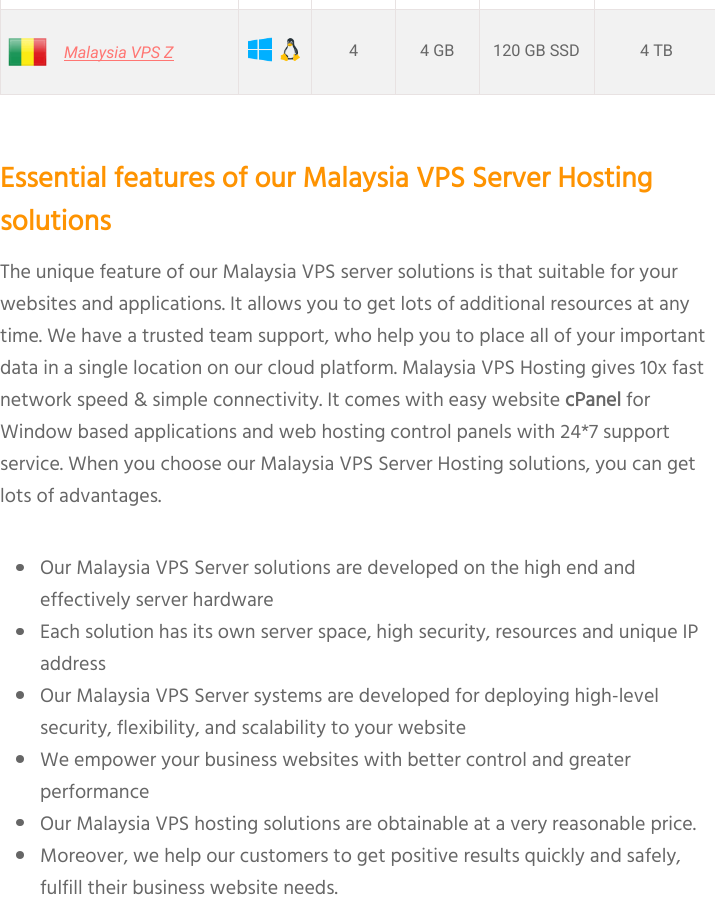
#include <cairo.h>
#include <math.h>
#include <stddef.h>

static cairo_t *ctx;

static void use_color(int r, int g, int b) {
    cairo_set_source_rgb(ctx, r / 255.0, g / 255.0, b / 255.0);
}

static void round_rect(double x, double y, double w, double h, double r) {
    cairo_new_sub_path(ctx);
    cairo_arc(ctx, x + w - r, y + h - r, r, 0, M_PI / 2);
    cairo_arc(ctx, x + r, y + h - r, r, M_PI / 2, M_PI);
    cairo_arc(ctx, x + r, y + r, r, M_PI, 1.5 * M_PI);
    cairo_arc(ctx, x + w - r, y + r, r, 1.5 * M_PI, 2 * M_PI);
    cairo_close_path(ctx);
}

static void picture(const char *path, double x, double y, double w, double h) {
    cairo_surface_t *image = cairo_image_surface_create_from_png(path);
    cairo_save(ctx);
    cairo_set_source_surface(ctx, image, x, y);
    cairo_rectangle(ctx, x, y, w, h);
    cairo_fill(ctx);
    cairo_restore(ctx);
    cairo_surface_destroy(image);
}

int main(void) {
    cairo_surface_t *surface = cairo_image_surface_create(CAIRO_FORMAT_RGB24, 715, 905);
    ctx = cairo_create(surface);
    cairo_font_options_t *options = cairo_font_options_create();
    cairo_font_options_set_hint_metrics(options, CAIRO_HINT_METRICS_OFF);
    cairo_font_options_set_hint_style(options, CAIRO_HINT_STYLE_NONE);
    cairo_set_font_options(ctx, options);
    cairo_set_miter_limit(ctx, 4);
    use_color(255, 255, 255);
    cairo_paint(ctx);
    use_color(232, 226, 226);
    cairo_rectangle(ctx, 594, 9, 121, 1);
    cairo_fill(ctx);
    use_color(242, 242, 242);
    cairo_rectangle(ctx, 1, 10, 714, 84);
    cairo_fill(ctx);
    use_color(232, 226, 226);
    cairo_rectangle(ctx, 594, 94, 121, 1);
    cairo_fill(ctx);
    cairo_rectangle(ctx, 594, 9, 1, 86);
    cairo_fill(ctx);
    cairo_rectangle(ctx, 479, 9, 116, 1);
    cairo_fill(ctx);
    cairo_rectangle(ctx, 479, 94, 116, 1);
    cairo_fill(ctx);
    cairo_rectangle(ctx, 479, 9, 1, 86);
    cairo_fill(ctx);
    cairo_rectangle(ctx, 395, 9, 85, 1);
    cairo_fill(ctx);
    cairo_rectangle(ctx, 395, 94, 85, 1);
    cairo_fill(ctx);
    cairo_rectangle(ctx, 395, 9, 1, 86);
    cairo_fill(ctx);
    cairo_rectangle(ctx, 311, 9, 85, 1);
    cairo_fill(ctx);
    cairo_rectangle(ctx, 311, 94, 85, 1);
    cairo_fill(ctx);
    cairo_rectangle(ctx, 311, 9, 1, 86);
    cairo_fill(ctx);
    cairo_rectangle(ctx, 238, 9, 75, 1);
    cairo_fill(ctx);
    cairo_rectangle(ctx, 238, 94, 75, 1);
    cairo_fill(ctx);
    cairo_rectangle(ctx, 238, 9, 1, 86);
    cairo_fill(ctx);
    cairo_rectangle(ctx, 0, 9, 239, 1);
    cairo_fill(ctx);
    cairo_rectangle(ctx, 238, 0, 1, 10);
    cairo_fill(ctx);
    cairo_rectangle(ctx, 311, 0, 1, 10);
    cairo_fill(ctx);
    cairo_rectangle(ctx, 395, 0, 1, 10);
    cairo_fill(ctx);
    cairo_rectangle(ctx, 479, 0, 1, 10);
    cairo_fill(ctx);
    cairo_rectangle(ctx, 594, 0, 1, 10);
    cairo_fill(ctx);
    cairo_rectangle(ctx, 0, 94, 239, 1);
    cairo_fill(ctx);
    cairo_rectangle(ctx, 0, 0, 1, 95);
    cairo_fill(ctx);
    picture("img1.png", 8, 38, 39, 28);
    use_color(255, 118, 115);
    cairo_rectangle(ctx, 64, 60, 110, 1);
    cairo_fill(ctx);
    cairo_select_font_face(ctx, "Roboto", CAIRO_FONT_SLANT_ITALIC, CAIRO_FONT_WEIGHT_NORMAL);
    cairo_set_font_size(ctx, 16.25);
    cairo_move_to(ctx, 64, 58);
    cairo_show_text(ctx, "Malaysia VPS Z");
    picture("img2.png", 248, 37, 24, 25);
    picture("img3.png", 280, 38, 20, 24);
    cairo_select_font_face(ctx, "Roboto", CAIRO_FONT_SLANT_NORMAL, CAIRO_FONT_WEIGHT_NORMAL);
    use_color(102, 102, 102);
    cairo_move_to(ctx, 349, 56);
    cairo_show_text(ctx, "4");
    cairo_move_to(ctx, 420, 56);
    cairo_show_text(ctx, "4 GB");
    cairo_move_to(ctx, 493, 56);
    cairo_show_text(ctx, "120 GB SSD");
    cairo_move_to(ctx, 640, 56);
    cairo_show_text(ctx, "4 TB");
    cairo_select_font_face(ctx, "Hind Vadodara", CAIRO_FONT_SLANT_NORMAL, CAIRO_FONT_WEIGHT_BOLD);
    cairo_set_font_size(ctx, 28.75);
    use_color(254, 147, 1);
    cairo_move_to(ctx, 0, 187);
    cairo_show_text(ctx, "Essential features of our Malaysia VPS Server Hosting");
    cairo_move_to(ctx, 0, 230);
    cairo_show_text(ctx, "solutions");
    cairo_select_font_face(ctx, "Hind Vadodara", CAIRO_FONT_SLANT_NORMAL, CAIRO_FONT_WEIGHT_NORMAL);
    cairo_set_font_size(ctx, 20);
    use_color(102, 102, 102);
    cairo_move_to(ctx, 0, 278);
    cairo_show_text(ctx, "The unique feature of our Malaysia VPS server solutions is that suitable for your");
    cairo_move_to(ctx, 0, 310);
    cairo_show_text(ctx, "websites and applications. It allows you to get lots of additional resources at any");
    cairo_move_to(ctx, 0, 342);
    cairo_show_text(ctx, "time. We have a trusted team support, who help you to place all of your important");
    cairo_move_to(ctx, 0, 374);
    cairo_show_text(ctx, "data in a single location on our cloud platform. Malaysia VPS Hosting gives 10x fast");
    cairo_move_to(ctx, 0, 406);
    cairo_show_text(ctx, "network speed & simple connectivity. It comes with easy website");
    cairo_select_font_face(ctx, "Hind Vadodara", CAIRO_FONT_SLANT_NORMAL, CAIRO_FONT_WEIGHT_BOLD);
    cairo_move_to(ctx, 565, 406);
    cairo_show_text(ctx, "cPanel");
    cairo_select_font_face(ctx, "Hind Vadodara", CAIRO_FONT_SLANT_NORMAL, CAIRO_FONT_WEIGHT_NORMAL);
    cairo_move_to(ctx, 626, 406);
    cairo_show_text(ctx, "for");
    cairo_move_to(ctx, 0, 438);
    cairo_show_text(ctx, "Window based applications and web hosting control panels with 24*7 support");
    cairo_move_to(ctx, 0, 470);
    cairo_show_text(ctx, "service. When you choose our Malaysia VPS Server Hosting solutions, you can get");
    cairo_move_to(ctx, 0, 502);
    cairo_show_text(ctx, "lots of advantages.");
    round_rect(16, 564, 8, 7, 3.5);
    cairo_fill(ctx);
    cairo_move_to(ctx, 40, 574);
    cairo_show_text(ctx, "Our Malaysia VPS Server solutions are developed on the high end and");
    cairo_move_to(ctx, 40, 606);
    cairo_show_text(ctx, "effectively server hardware");
    round_rect(16, 628, 8, 7, 3.5);
    cairo_fill(ctx);
    cairo_move_to(ctx, 40, 638);
    cairo_show_text(ctx, "Each solution has its own server space, high security, resources and unique IP");
    cairo_move_to(ctx, 40, 670);
    cairo_show_text(ctx, "address");
    cairo_new_path(ctx);
    cairo_arc(ctx, 20, 695, 4, 0, 2 * M_PI);
    cairo_fill(ctx);
    cairo_move_to(ctx, 40, 702);
    cairo_show_text(ctx, "Our Malaysia VPS Server systems are developed for deploying high-level");
    cairo_move_to(ctx, 40, 734);
    cairo_show_text(ctx, "security, flexibility, and scalability to your website");
    cairo_new_path(ctx);
    cairo_arc(ctx, 20, 759, 4, 0, 2 * M_PI);
    cairo_fill(ctx);
    cairo_move_to(ctx, 40, 766);
    cairo_show_text(ctx, "We empower your business websites with better control and greater");
    cairo_move_to(ctx, 40, 798);
    cairo_show_text(ctx, "performance");
    round_rect(16, 819, 8, 7, 3.5);
    cairo_fill(ctx);
    cairo_move_to(ctx, 40, 830);
    cairo_show_text(ctx, "Our Malaysia VPS hosting solutions are obtainable at a very reasonable price.");
    cairo_new_path(ctx);
    cairo_arc(ctx, 20, 855, 4, 0, 2 * M_PI);
    cairo_fill(ctx);
    cairo_move_to(ctx, 40, 862);
    cairo_show_text(ctx, "Moreover, we help our customers to get positive results quickly and safely,");
    cairo_move_to(ctx, 40, 894);
    cairo_show_text(ctx, "fulfill their business website needs.");
    cairo_surface_write_to_png(surface, "result.png");
    cairo_font_options_destroy(options);
    cairo_destroy(ctx);
    cairo_surface_destroy(surface);
    return 0;
}
